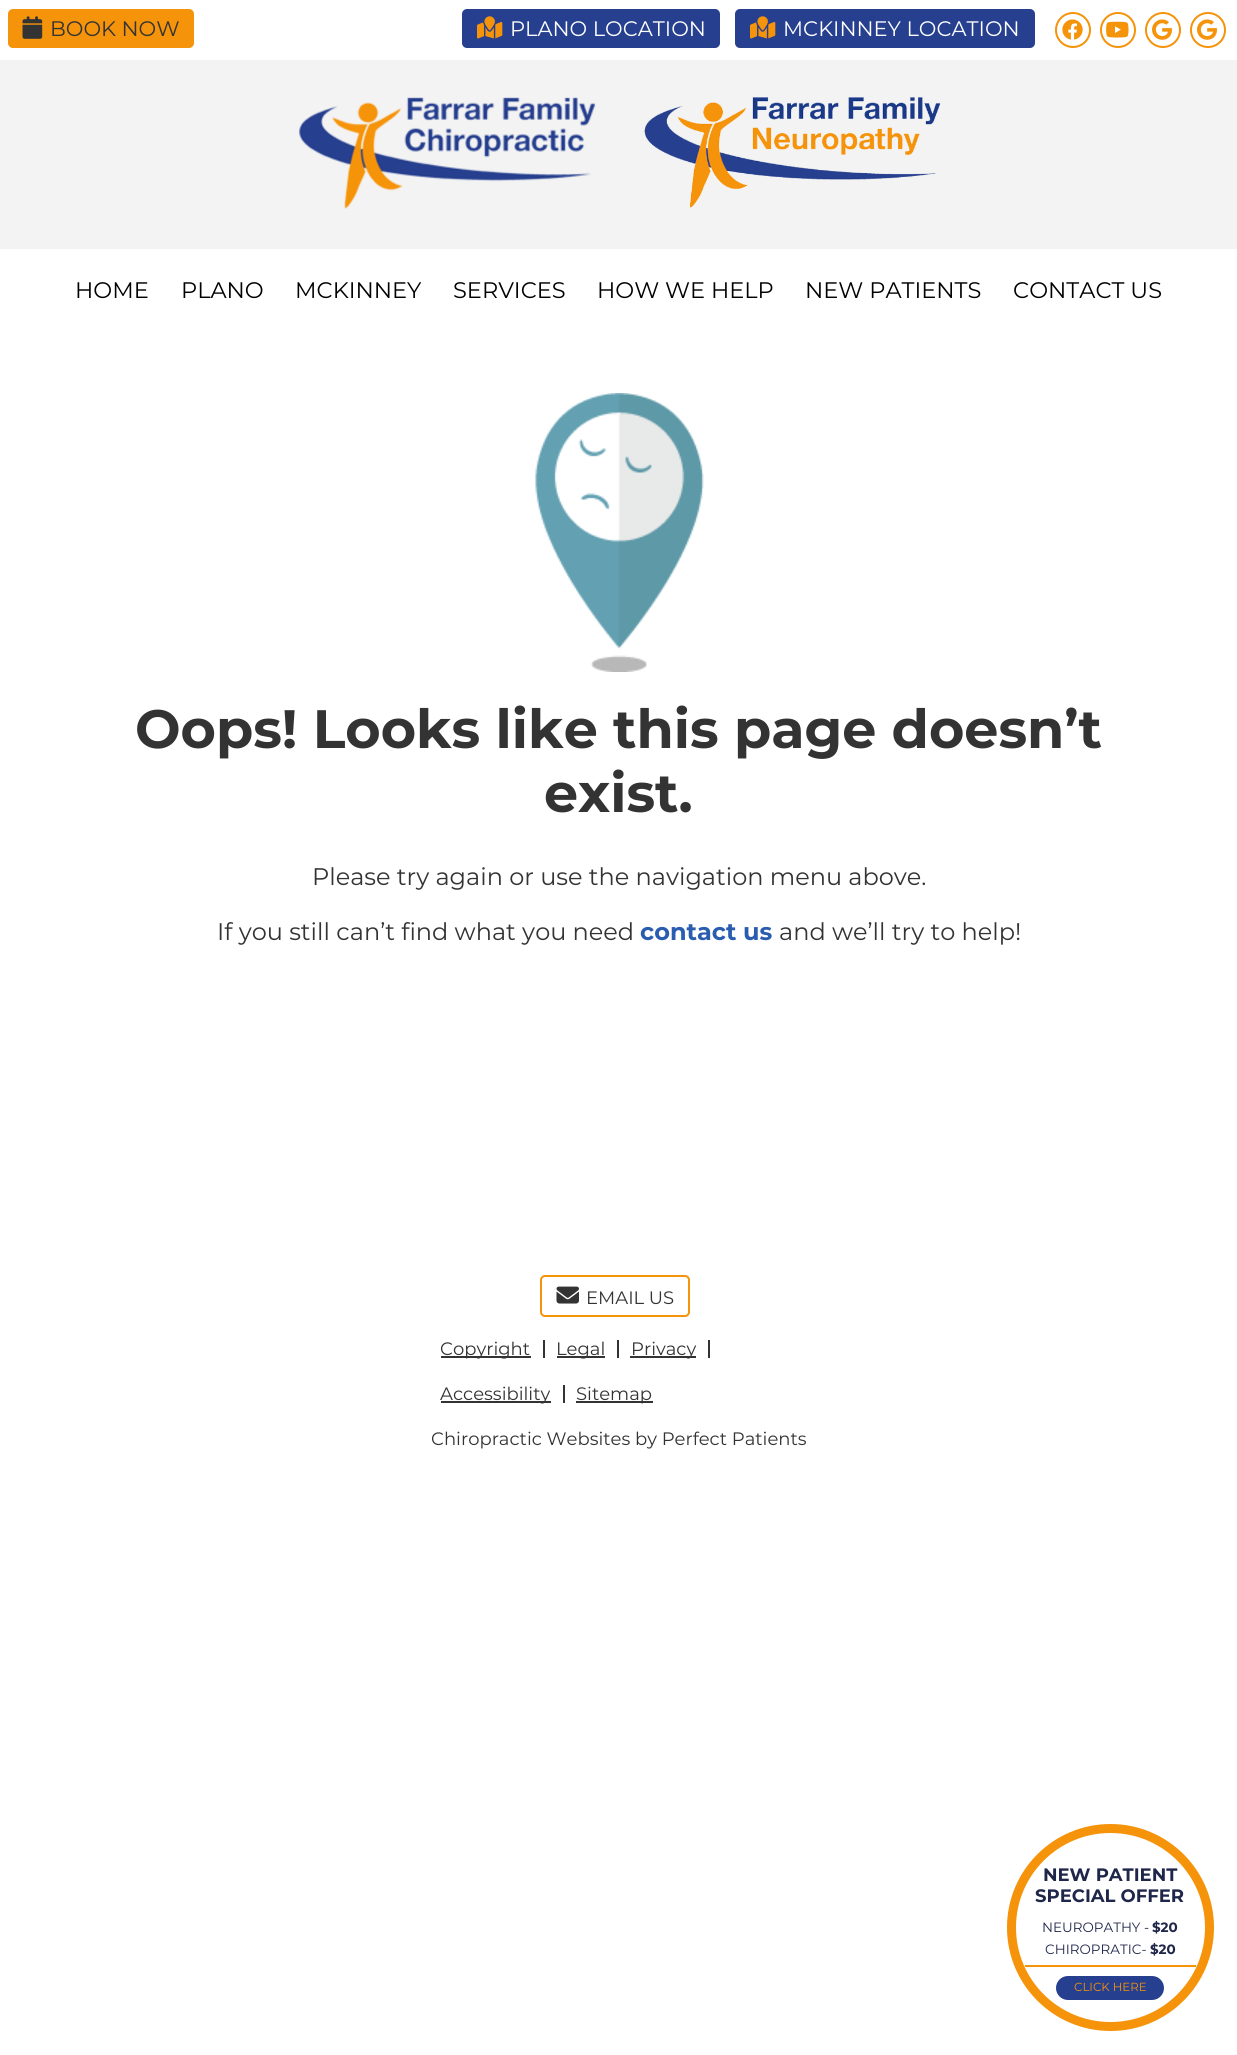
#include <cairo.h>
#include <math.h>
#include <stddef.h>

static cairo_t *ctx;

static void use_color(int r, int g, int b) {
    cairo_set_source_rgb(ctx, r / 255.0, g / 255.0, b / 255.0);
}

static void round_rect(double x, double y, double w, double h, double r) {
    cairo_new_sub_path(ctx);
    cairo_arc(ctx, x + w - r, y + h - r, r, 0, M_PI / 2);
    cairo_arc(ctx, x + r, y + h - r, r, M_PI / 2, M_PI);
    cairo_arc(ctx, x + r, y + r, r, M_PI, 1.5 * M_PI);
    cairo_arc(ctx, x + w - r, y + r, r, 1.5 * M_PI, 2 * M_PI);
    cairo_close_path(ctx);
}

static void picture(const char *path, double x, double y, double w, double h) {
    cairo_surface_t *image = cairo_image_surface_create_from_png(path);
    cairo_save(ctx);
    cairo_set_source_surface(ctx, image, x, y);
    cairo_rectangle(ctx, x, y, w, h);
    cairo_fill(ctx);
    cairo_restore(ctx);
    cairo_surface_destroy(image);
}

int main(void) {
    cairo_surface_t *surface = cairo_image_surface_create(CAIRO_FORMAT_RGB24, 1237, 2055);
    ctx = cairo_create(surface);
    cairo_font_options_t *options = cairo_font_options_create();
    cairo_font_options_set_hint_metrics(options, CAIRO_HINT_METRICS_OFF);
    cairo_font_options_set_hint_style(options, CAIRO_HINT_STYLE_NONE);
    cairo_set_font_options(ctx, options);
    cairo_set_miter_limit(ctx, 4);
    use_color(255, 255, 255);
    cairo_paint(ctx);
    use_color(245, 147, 10);
    round_rect(8, 9, 186, 39, 5);
    cairo_fill(ctx);
    picture("img1.png", 22, 16, 21, 23);
    cairo_select_font_face(ctx, "Montserrat", CAIRO_FONT_SLANT_NORMAL, CAIRO_FONT_WEIGHT_NORMAL);
    cairo_set_font_size(ctx, 21);
    use_color(51, 51, 51);
    cairo_move_to(ctx, 50, 36);
    cairo_show_text(ctx, "BOOK NOW");
    use_color(38, 63, 142);
    round_rect(462, 9, 258, 39, 5);
    cairo_fill(ctx);
    picture("img2.png", 477, 16, 26, 23);
    use_color(255, 255, 255);
    cairo_move_to(ctx, 510, 36);
    cairo_show_text(ctx, "PLANO LOCATION");
    use_color(38, 63, 142);
    round_rect(735, 9, 300, 39, 5);
    cairo_fill(ctx);
    picture("img2.png", 750, 16, 26, 23);
    use_color(255, 255, 255);
    cairo_move_to(ctx, 783, 36);
    cairo_show_text(ctx, "MCKINNEY LOCATION");
    cairo_new_path(ctx);
    cairo_arc(ctx, 1073, 30, 17, 0, 2 * M_PI);
    use_color(245, 147, 10);
    cairo_stroke(ctx);
    picture("img3.png", 1062, 19, 21, 21);
    cairo_arc(ctx, 1118, 30, 17, 0, 2 * M_PI);
    cairo_stroke(ctx);
    picture("img4.png", 1106, 21, 23, 17);
    cairo_arc(ctx, 1163, 30, 17, 0, 2 * M_PI);
    cairo_stroke(ctx);
    picture("img5.png", 1152, 19, 20, 21);
    cairo_arc(ctx, 1208, 30, 17, 0, 2 * M_PI);
    cairo_stroke(ctx);
    picture("img5.png", 1197, 19, 20, 21);
    use_color(243, 243, 243);
    cairo_rectangle(ctx, 0, 60, 1237, 189);
    cairo_fill(ctx);
    picture("img6.png", 299, 97, 297, 112);
    picture("img7.png", 644, 97, 297, 111);
    cairo_set_font_size(ctx, 22.5);
    use_color(0, 0, 0);
    cairo_move_to(ctx, 75, 298);
    cairo_show_text(ctx, "HOME");
    cairo_move_to(ctx, 181, 298);
    cairo_show_text(ctx, "PLANO");
    cairo_move_to(ctx, 295, 298);
    cairo_show_text(ctx, "MCKINNEY");
    cairo_move_to(ctx, 453, 298);
    cairo_show_text(ctx, "SERVICES");
    cairo_move_to(ctx, 597, 298);
    cairo_show_text(ctx, "HOW WE HELP");
    cairo_move_to(ctx, 805, 298);
    cairo_show_text(ctx, "NEW PATIENTS");
    cairo_move_to(ctx, 1013, 298);
    cairo_show_text(ctx, "CONTACT US");
    picture("img8.png", 535, 393, 169, 279);
    cairo_select_font_face(ctx, "Montserrat", CAIRO_FONT_SLANT_NORMAL, CAIRO_FONT_WEIGHT_BOLD);
    cairo_set_font_size(ctx, 54);
    use_color(51, 51, 51);
    cairo_move_to(ctx, 135, 748);
    cairo_show_text(ctx, "Oops! Looks like this page doesn’t");
    cairo_move_to(ctx, 544, 812);
    cairo_show_text(ctx, "exist.");
    cairo_select_font_face(ctx, "Montserrat", CAIRO_FONT_SLANT_NORMAL, CAIRO_FONT_WEIGHT_NORMAL);
    cairo_set_font_size(ctx, 24);
    cairo_move_to(ctx, 312, 885);
    cairo_show_text(ctx, "Please try again or use the navigation menu above.");
    cairo_move_to(ctx, 217, 940);
    cairo_show_text(ctx, "If you still can’t find what you need");
    cairo_select_font_face(ctx, "Montserrat", CAIRO_FONT_SLANT_NORMAL, CAIRO_FONT_WEIGHT_BOLD);
    use_color(42, 93, 176);
    cairo_move_to(ctx, 640, 940);
    cairo_show_text(ctx, "contact us");
    cairo_select_font_face(ctx, "Montserrat", CAIRO_FONT_SLANT_NORMAL, CAIRO_FONT_WEIGHT_NORMAL);
    use_color(51, 51, 51);
    cairo_move_to(ctx, 779, 940);
    cairo_show_text(ctx, "and we’ll try to help!");
    round_rect(541, 1276, 148, 40, 4);
    use_color(245, 147, 10);
    cairo_stroke(ctx);
    picture("img9.png", 556, 1286, 23, 18);
    cairo_set_font_size(ctx, 18);
    use_color(51, 51, 51);
    cairo_move_to(ctx, 586, 1304);
    cairo_show_text(ctx, "EMAIL US");
    cairo_rectangle(ctx, 441, 1356, 90, 2);
    cairo_fill(ctx);
    cairo_move_to(ctx, 440, 1355);
    cairo_show_text(ctx, "Copyright");
    cairo_rectangle(ctx, 543, 1340, 2, 18);
    cairo_fill(ctx);
    cairo_rectangle(ctx, 557, 1356, 48, 2);
    cairo_fill(ctx);
    cairo_move_to(ctx, 556, 1355);
    cairo_show_text(ctx, "Legal");
    cairo_rectangle(ctx, 617, 1340, 2, 18);
    cairo_fill(ctx);
    cairo_rectangle(ctx, 630, 1356, 66, 2);
    cairo_fill(ctx);
    cairo_move_to(ctx, 631, 1355);
    cairo_show_text(ctx, "Privacy");
    cairo_rectangle(ctx, 708, 1340, 2, 18);
    cairo_fill(ctx);
    cairo_rectangle(ctx, 441, 1401, 110, 2);
    cairo_fill(ctx);
    cairo_move_to(ctx, 440, 1400);
    cairo_show_text(ctx, "Accessibility");
    cairo_rectangle(ctx, 563, 1385, 2, 18);
    cairo_fill(ctx);
    cairo_rectangle(ctx, 576, 1401, 77, 2);
    cairo_fill(ctx);
    cairo_move_to(ctx, 576, 1400);
    cairo_show_text(ctx, "Sitemap");
    cairo_move_to(ctx, 431, 1445);
    cairo_show_text(ctx, "Chiropractic Websites by Perfect Patients");
    cairo_new_path(ctx);
    cairo_arc(ctx, 1110.5, 1927.5, 99, 0, 2 * M_PI);
    use_color(245, 147, 10);
    cairo_set_line_width(ctx, 9);
    cairo_stroke(ctx);
    cairo_select_font_face(ctx, "Montserrat", CAIRO_FONT_SLANT_NORMAL, CAIRO_FONT_WEIGHT_BOLD);
    use_color(30, 38, 74);
    cairo_move_to(ctx, 1043, 1881);
    cairo_show_text(ctx, "NEW PATIENT");
    cairo_move_to(ctx, 1035, 1902);
    cairo_show_text(ctx, "SPECIAL OFFER");
    use_color(245, 147, 10);
    cairo_rectangle(ctx, 1025, 1965, 171, 2);
    cairo_fill(ctx);
    cairo_select_font_face(ctx, "Montserrat", CAIRO_FONT_SLANT_NORMAL, CAIRO_FONT_WEIGHT_NORMAL);
    cairo_set_font_size(ctx, 13.5);
    use_color(30, 38, 74);
    cairo_move_to(ctx, 1042, 1932);
    cairo_show_text(ctx, "NEUROPATHY -");
    cairo_select_font_face(ctx, "Montserrat", CAIRO_FONT_SLANT_NORMAL, CAIRO_FONT_WEIGHT_BOLD);
    cairo_move_to(ctx, 1152, 1932);
    cairo_show_text(ctx, "$20");
    cairo_select_font_face(ctx, "Montserrat", CAIRO_FONT_SLANT_NORMAL, CAIRO_FONT_WEIGHT_NORMAL);
    cairo_move_to(ctx, 1045, 1954);
    cairo_show_text(ctx, "CHIROPRATIC-");
    cairo_select_font_face(ctx, "Montserrat", CAIRO_FONT_SLANT_NORMAL, CAIRO_FONT_WEIGHT_BOLD);
    cairo_move_to(ctx, 1150, 1954);
    cairo_show_text(ctx, "$20");
    use_color(38, 63, 142);
    round_rect(1056, 1976, 108, 24, 12);
    cairo_fill(ctx);
    cairo_select_font_face(ctx, "Montserrat", CAIRO_FONT_SLANT_NORMAL, CAIRO_FONT_WEIGHT_NORMAL);
    cairo_set_font_size(ctx, 11.75);
    use_color(245, 147, 10);
    cairo_move_to(ctx, 1074, 1991);
    cairo_show_text(ctx, "CLICK HERE");
    cairo_surface_write_to_png(surface, "result.png");
    cairo_font_options_destroy(options);
    cairo_destroy(ctx);
    cairo_surface_destroy(surface);
    return 0;
}
